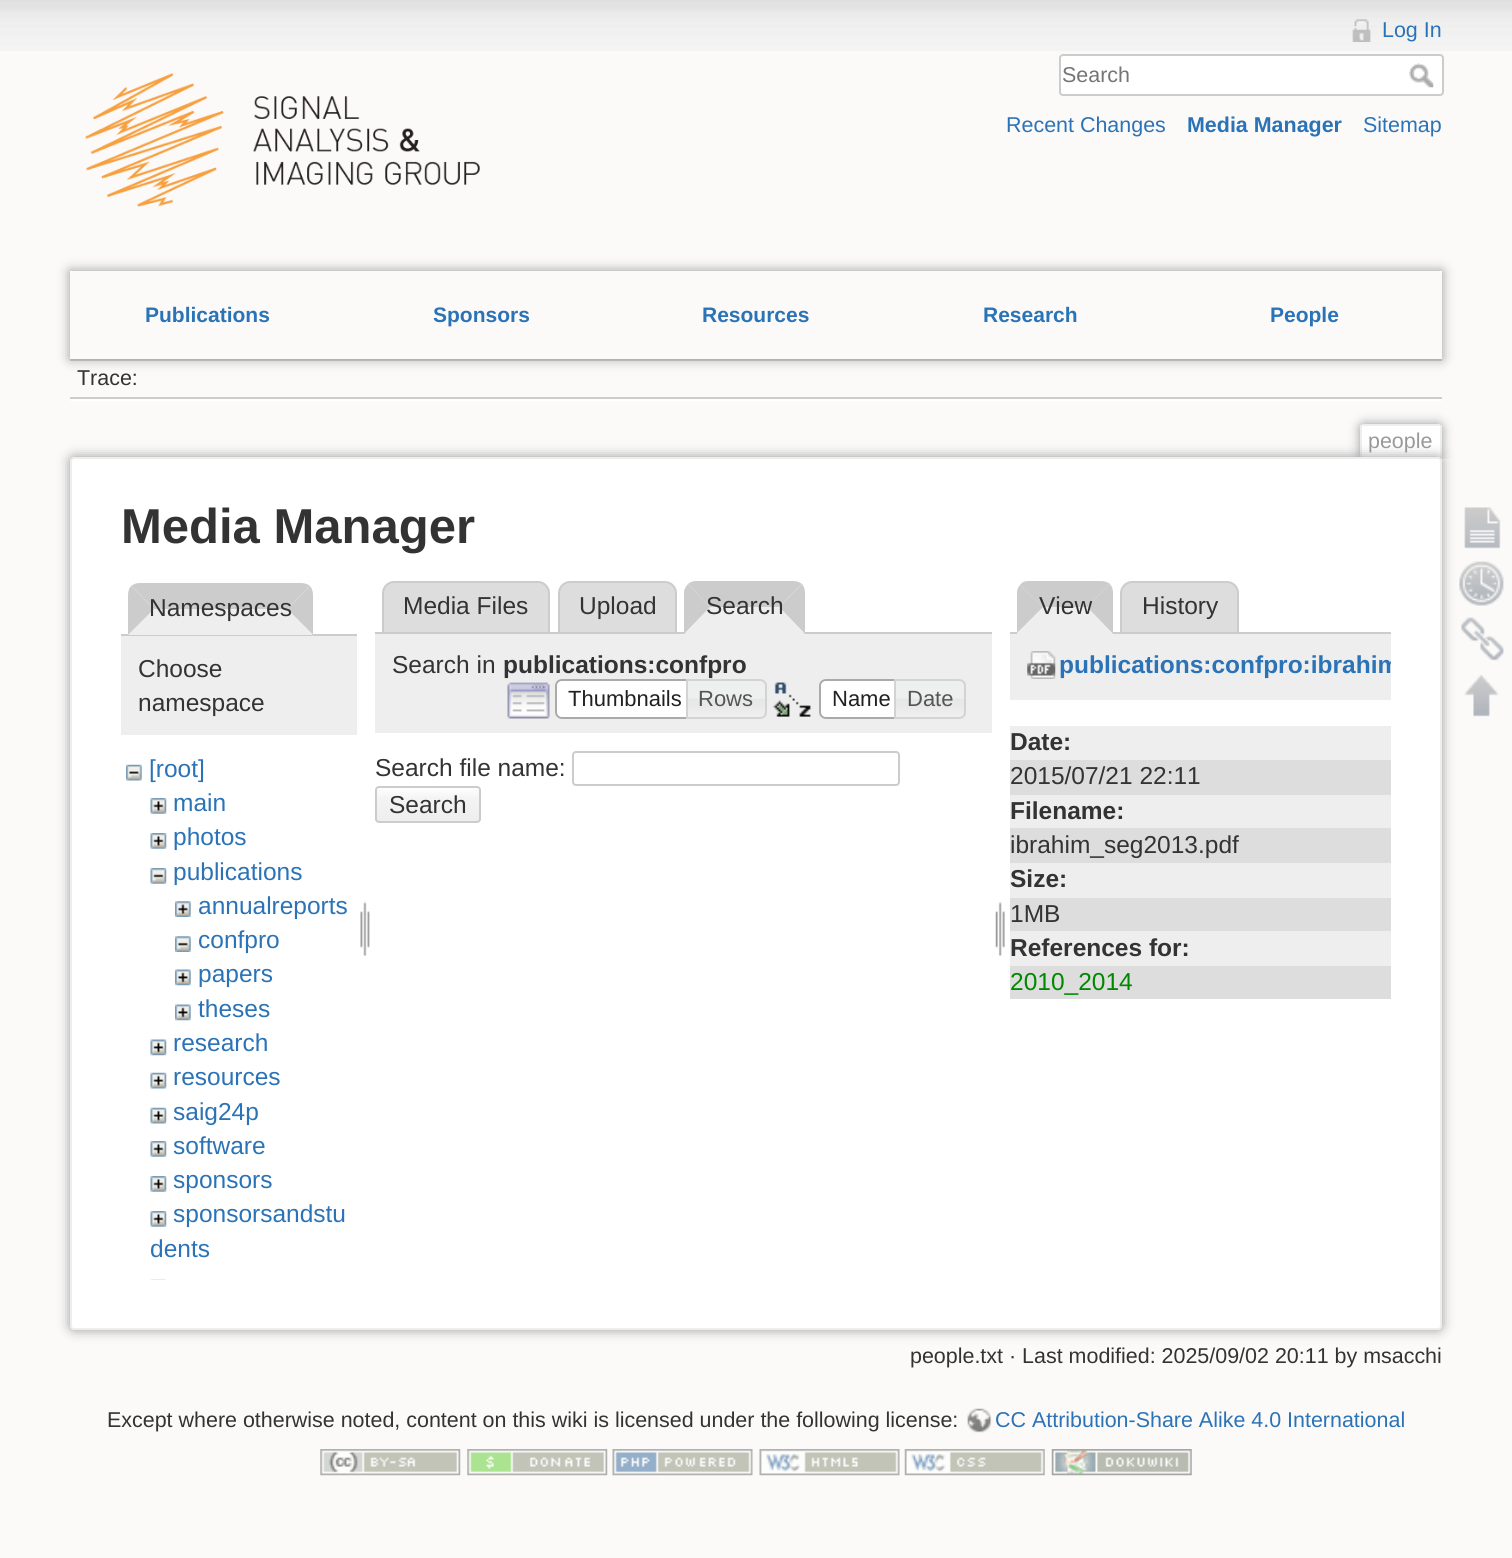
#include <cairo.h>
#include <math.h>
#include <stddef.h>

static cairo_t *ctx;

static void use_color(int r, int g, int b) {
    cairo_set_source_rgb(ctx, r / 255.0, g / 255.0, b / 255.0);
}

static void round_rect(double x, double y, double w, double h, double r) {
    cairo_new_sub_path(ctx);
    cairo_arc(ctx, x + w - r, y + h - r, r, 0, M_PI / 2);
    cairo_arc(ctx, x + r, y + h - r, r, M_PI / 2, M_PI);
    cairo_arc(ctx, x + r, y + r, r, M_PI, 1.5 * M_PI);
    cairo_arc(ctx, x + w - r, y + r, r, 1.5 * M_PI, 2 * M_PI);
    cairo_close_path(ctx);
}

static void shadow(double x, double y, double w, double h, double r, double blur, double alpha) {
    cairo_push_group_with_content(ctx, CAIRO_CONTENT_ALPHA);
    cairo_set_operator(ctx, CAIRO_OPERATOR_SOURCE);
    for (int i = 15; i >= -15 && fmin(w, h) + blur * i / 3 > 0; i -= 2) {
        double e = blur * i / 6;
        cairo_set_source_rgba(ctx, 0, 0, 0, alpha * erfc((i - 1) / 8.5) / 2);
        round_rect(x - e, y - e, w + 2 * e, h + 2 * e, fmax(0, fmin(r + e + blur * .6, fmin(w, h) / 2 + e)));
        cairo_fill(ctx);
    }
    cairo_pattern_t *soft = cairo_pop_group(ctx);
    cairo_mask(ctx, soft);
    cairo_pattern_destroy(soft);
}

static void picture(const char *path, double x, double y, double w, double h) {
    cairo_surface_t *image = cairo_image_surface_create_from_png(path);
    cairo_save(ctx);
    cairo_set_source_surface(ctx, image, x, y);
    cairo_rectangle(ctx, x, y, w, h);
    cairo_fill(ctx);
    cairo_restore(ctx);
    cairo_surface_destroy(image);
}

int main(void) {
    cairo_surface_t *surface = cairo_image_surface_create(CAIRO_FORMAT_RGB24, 1512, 1558);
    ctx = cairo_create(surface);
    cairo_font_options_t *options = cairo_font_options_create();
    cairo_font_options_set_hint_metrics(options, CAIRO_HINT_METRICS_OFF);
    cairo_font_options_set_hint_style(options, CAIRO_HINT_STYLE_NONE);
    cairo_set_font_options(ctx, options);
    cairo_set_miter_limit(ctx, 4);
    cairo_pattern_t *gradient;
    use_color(251, 250, 249);
    cairo_paint(ctx);
    picture("img1.png", 0, 0, 1512, 51);
    picture("img2.png", 85, 73, 395, 134);
    picture("img3.png", 1352, 19, 19, 23);
    cairo_select_font_face(ctx, "Liberation Sans", CAIRO_FONT_SLANT_NORMAL, CAIRO_FONT_WEIGHT_NORMAL);
    cairo_set_font_size(ctx, 21.45);
    use_color(43, 115, 183);
    cairo_move_to(ctx, 1382, 37);
    cairo_show_text(ctx, "Log In");
    use_color(255, 255, 255);
    round_rect(1060, 55, 383, 40, 3);
    cairo_fill_preserve(ctx);
    use_color(204, 204, 204);
    cairo_stroke(ctx);
    use_color(117, 117, 117);
    cairo_move_to(ctx, 1062, 82);
    cairo_show_text(ctx, "Search");
    picture("img4.png", 1409, 63, 25, 25);
    use_color(43, 115, 183);
    cairo_move_to(ctx, 1006, 132);
    cairo_show_text(ctx, "Recent Changes");
    cairo_select_font_face(ctx, "Liberation Sans", CAIRO_FONT_SLANT_NORMAL, CAIRO_FONT_WEIGHT_BOLD);
    cairo_move_to(ctx, 1187, 132);
    cairo_show_text(ctx, "Media Manager");
    cairo_select_font_face(ctx, "Liberation Sans", CAIRO_FONT_SLANT_NORMAL, CAIRO_FONT_WEIGHT_NORMAL);
    cairo_move_to(ctx, 1363, 132);
    cairo_show_text(ctx, "Sitemap");
    use_color(204, 204, 204);
    cairo_rectangle(ctx, 70, 359, 1372, 2);
    cairo_fill(ctx);
    use_color(255, 255, 255);
    cairo_rectangle(ctx, 70, 361, 1372, 2);
    cairo_fill(ctx);
    cairo_save(ctx);
    cairo_set_fill_rule(ctx, CAIRO_FILL_RULE_EVEN_ODD);
    cairo_new_path(ctx);
    cairo_move_to(ctx, 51, 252);
    cairo_line_to(ctx, 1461, 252);
    cairo_line_to(ctx, 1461, 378);
    cairo_line_to(ctx, 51, 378);
    cairo_close_path(ctx);
    cairo_move_to(ctx, 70, 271);
    cairo_line_to(ctx, 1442, 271);
    cairo_line_to(ctx, 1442, 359);
    cairo_line_to(ctx, 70, 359);
    cairo_close_path(ctx);
    cairo_clip(ctx);
    use_color(153, 153, 153);
    shadow(70, 271, 1372, 88, 0, 6, 1);
    cairo_restore(ctx);
    cairo_select_font_face(ctx, "Liberation Sans", CAIRO_FONT_SLANT_NORMAL, CAIRO_FONT_WEIGHT_BOLD);
    cairo_set_font_size(ctx, 21);
    use_color(43, 115, 183);
    cairo_move_to(ctx, 145, 322);
    cairo_show_text(ctx, "Publications");
    cairo_move_to(ctx, 433, 322);
    cairo_show_text(ctx, "Sponsors");
    cairo_move_to(ctx, 702, 322);
    cairo_show_text(ctx, "Resources");
    cairo_move_to(ctx, 983, 322);
    cairo_show_text(ctx, "Research");
    cairo_move_to(ctx, 1270, 322);
    cairo_show_text(ctx, "People");
    use_color(255, 255, 255);
    cairo_rectangle(ctx, 70, 399, 1372, 2);
    cairo_fill(ctx);
    use_color(204, 204, 204);
    cairo_rectangle(ctx, 70, 397, 1372, 2);
    cairo_fill(ctx);
    cairo_select_font_face(ctx, "Liberation Sans", CAIRO_FONT_SLANT_NORMAL, CAIRO_FONT_WEIGHT_NORMAL);
    cairo_set_font_size(ctx, 21.45);
    use_color(51, 51, 51);
    cairo_move_to(ctx, 77, 385);
    cairo_show_text(ctx, "Trace:");
    cairo_save(ctx);
    cairo_rectangle(ctx, 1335, 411, 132, 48);
    cairo_clip(ctx);
    use_color(153, 153, 153);
    shadow(1360, 424, 82, 35, 4, 5.5, 1);
    cairo_restore(ctx);
    use_color(255, 255, 255);
    cairo_new_path(ctx);
    cairo_move_to(ctx, 1364, 425);
    cairo_line_to(ctx, 1438, 425);
    cairo_curve_to(ctx, 1439, 425, 1440, 426, 1440, 427);
    cairo_line_to(ctx, 1440, 459);
    cairo_line_to(ctx, 1362, 459);
    cairo_line_to(ctx, 1362, 427);
    cairo_curve_to(ctx, 1362, 426, 1363, 425, 1364, 425);
    cairo_close_path(ctx);
    cairo_fill(ctx);
    use_color(238, 238, 238);
    cairo_rectangle(ctx, 1362, 424, 78, 2);
    cairo_fill(ctx);
    cairo_rectangle(ctx, 1440, 425, 2, 34);
    cairo_fill(ctx);
    cairo_rectangle(ctx, 1360, 425, 2, 34);
    cairo_fill(ctx);
    use_color(153, 153, 153);
    cairo_move_to(ctx, 1368, 448);
    cairo_show_text(ctx, "people");
    use_color(153, 153, 153);
    shadow(70, 457, 1372, 873, 4, 6, 1);
    use_color(255, 255, 255);
    round_rect(71, 458, 1370, 871, 3);
    cairo_fill_preserve(ctx);
    use_color(238, 238, 238);
    cairo_stroke(ctx);
    cairo_select_font_face(ctx, "Liberation Sans", CAIRO_FONT_SLANT_NORMAL, CAIRO_FONT_WEIGHT_BOLD);
    cairo_set_font_size(ctx, 49);
    use_color(51, 51, 51);
    cairo_move_to(ctx, 121, 543);
    cairo_show_text(ctx, "Media Manager");
    use_color(204, 204, 204);
    cairo_new_path(ctx);
    cairo_move_to(ctx, 140, 583);
    cairo_curve_to(ctx, 136, 583, 134, 584, 131, 586);
    cairo_line_to(ctx, 154, 609);
    cairo_line_to(ctx, 287, 609);
    cairo_line_to(ctx, 310, 586);
    cairo_curve_to(ctx, 308, 584, 304, 583, 301, 583);
    cairo_close_path(ctx);
    cairo_fill(ctx);
    cairo_rectangle(ctx, 121, 634, 236, 2);
    cairo_fill(ctx);
    cairo_new_path(ctx);
    cairo_move_to(ctx, 313, 635);
    cairo_line_to(ctx, 313, 595);
    cairo_curve_to(ctx, 313, 592, 312, 588, 310, 586);
    cairo_line_to(ctx, 287, 609);
    cairo_close_path(ctx);
    cairo_fill(ctx);
    use_color(238, 238, 238);
    cairo_new_path(ctx);
    cairo_move_to(ctx, 313, 635);
    cairo_line_to(ctx, 287, 609);
    cairo_line_to(ctx, 154, 609);
    cairo_line_to(ctx, 128, 635);
    cairo_close_path(ctx);
    cairo_fill(ctx);
    use_color(204, 204, 204);
    cairo_new_path(ctx);
    cairo_move_to(ctx, 131, 586);
    cairo_curve_to(ctx, 129, 588, 128, 592, 128, 595);
    cairo_line_to(ctx, 128, 635);
    cairo_line_to(ctx, 154, 609);
    cairo_close_path(ctx);
    cairo_fill(ctx);
    cairo_select_font_face(ctx, "Liberation Sans", CAIRO_FONT_SLANT_NORMAL, CAIRO_FONT_WEIGHT_NORMAL);
    cairo_set_font_size(ctx, 24.5);
    use_color(51, 51, 51);
    cairo_move_to(ctx, 149, 616);
    cairo_show_text(ctx, "Namespaces");
    use_color(238, 238, 238);
    cairo_rectangle(ctx, 121, 636, 236, 99);
    cairo_fill(ctx);
    use_color(51, 51, 51);
    cairo_move_to(ctx, 138, 677);
    cairo_show_text(ctx, "Choose");
    cairo_move_to(ctx, 138, 711);
    cairo_show_text(ctx, "namespace");
    picture("img5.png", 126, 764, 16, 17);
    use_color(43, 115, 183);
    cairo_move_to(ctx, 149, 777);
    cairo_show_text(ctx, "[root]");
    picture("img6.png", 150, 798, 17, 16);
    cairo_move_to(ctx, 173, 811);
    cairo_show_text(ctx, "main");
    picture("img6.png", 150, 833, 17, 16);
    cairo_move_to(ctx, 173, 845);
    cairo_show_text(ctx, "photos");
    picture("img7.png", 150, 868, 17, 16);
    cairo_move_to(ctx, 173, 880);
    cairo_show_text(ctx, "publications");
    picture("img8.png", 175, 901, 16, 16);
    cairo_move_to(ctx, 198, 914);
    cairo_show_text(ctx, "annualreports");
    picture("img9.png", 175, 936, 16, 16);
    cairo_move_to(ctx, 198, 948);
    cairo_show_text(ctx, "confpro");
    picture("img10.png", 175, 969, 16, 17);
    cairo_move_to(ctx, 198, 982);
    cairo_show_text(ctx, "papers");
    picture("img10.png", 175, 1004, 16, 17);
    cairo_move_to(ctx, 198, 1017);
    cairo_show_text(ctx, "theses");
    picture("img11.png", 150, 1039, 17, 17);
    cairo_move_to(ctx, 173, 1051);
    cairo_show_text(ctx, "research");
    picture("img12.png", 150, 1072, 17, 17);
    cairo_move_to(ctx, 173, 1085);
    cairo_show_text(ctx, "resources");
    picture("img12.png", 150, 1107, 17, 17);
    cairo_move_to(ctx, 173, 1120);
    cairo_show_text(ctx, "saig24p");
    picture("img6.png", 150, 1141, 17, 16);
    cairo_move_to(ctx, 173, 1154);
    cairo_show_text(ctx, "software");
    picture("img6.png", 150, 1176, 17, 16);
    cairo_move_to(ctx, 173, 1188);
    cairo_show_text(ctx, "sponsors");
    picture("img6.png", 150, 1211, 17, 16);
    cairo_move_to(ctx, 173, 1222);
    cairo_show_text(ctx, "sponsorsandstu");
    cairo_move_to(ctx, 150, 1257);
    cairo_show_text(ctx, "dents");
    picture("img13.png", 150, 1279, 16, 1);
    picture("img14.png", 360, 901, 10, 55);
    use_color(221, 221, 221);
    cairo_new_path(ctx);
    cairo_move_to(ctx, 394, 582);
    cairo_line_to(ctx, 538, 582);
    cairo_curve_to(ctx, 544, 582, 549, 587, 549, 593);
    cairo_line_to(ctx, 549, 633);
    cairo_line_to(ctx, 383, 633);
    cairo_line_to(ctx, 383, 593);
    cairo_curve_to(ctx, 383, 587, 388, 582, 394, 582);
    cairo_close_path(ctx);
    cairo_fill_preserve(ctx);
    use_color(204, 204, 204);
    cairo_stroke(ctx);
    use_color(51, 51, 51);
    cairo_move_to(ctx, 403, 614);
    cairo_show_text(ctx, "Media Files");
    use_color(221, 221, 221);
    cairo_new_path(ctx);
    cairo_move_to(ctx, 570, 582);
    cairo_line_to(ctx, 665, 582);
    cairo_curve_to(ctx, 671, 582, 676, 587, 676, 593);
    cairo_line_to(ctx, 676, 633);
    cairo_line_to(ctx, 559, 633);
    cairo_line_to(ctx, 559, 593);
    cairo_curve_to(ctx, 559, 587, 564, 582, 570, 582);
    cairo_close_path(ctx);
    cairo_fill_preserve(ctx);
    use_color(204, 204, 204);
    cairo_stroke(ctx);
    use_color(51, 51, 51);
    cairo_move_to(ctx, 579, 614);
    cairo_show_text(ctx, "Upload");
    use_color(204, 204, 204);
    cairo_new_path(ctx);
    cairo_move_to(ctx, 696, 581);
    cairo_line_to(ctx, 793, 581);
    cairo_curve_to(ctx, 796, 581, 800, 582, 802, 584);
    cairo_line_to(ctx, 779, 607);
    cairo_line_to(ctx, 710, 607);
    cairo_line_to(ctx, 688, 584);
    cairo_curve_to(ctx, 690, 582, 693, 581, 696, 581);
    cairo_close_path(ctx);
    cairo_fill(ctx);
    cairo_rectangle(ctx, 375, 632, 617, 2);
    cairo_fill(ctx);
    cairo_new_path(ctx);
    cairo_move_to(ctx, 802, 584);
    cairo_line_to(ctx, 779, 607);
    cairo_line_to(ctx, 805, 634);
    cairo_line_to(ctx, 805, 593);
    cairo_curve_to(ctx, 805, 590, 804, 586, 802, 584);
    cairo_close_path(ctx);
    cairo_fill(ctx);
    use_color(238, 238, 238);
    cairo_new_path(ctx);
    cairo_move_to(ctx, 805, 634);
    cairo_line_to(ctx, 779, 607);
    cairo_line_to(ctx, 710, 607);
    cairo_line_to(ctx, 684, 634);
    cairo_close_path(ctx);
    cairo_fill(ctx);
    use_color(204, 204, 204);
    cairo_new_path(ctx);
    cairo_move_to(ctx, 684, 634);
    cairo_line_to(ctx, 710, 607);
    cairo_line_to(ctx, 688, 584);
    cairo_curve_to(ctx, 686, 586, 685, 588, 684, 591);
    cairo_close_path(ctx);
    cairo_fill(ctx);
    use_color(51, 51, 51);
    cairo_move_to(ctx, 706, 614);
    cairo_show_text(ctx, "Search");
    use_color(238, 238, 238);
    cairo_rectangle(ctx, 375, 634, 617, 99);
    cairo_fill(ctx);
    use_color(51, 51, 51);
    cairo_move_to(ctx, 392, 673);
    cairo_show_text(ctx, "Search in");
    cairo_select_font_face(ctx, "Liberation Sans", CAIRO_FONT_SLANT_NORMAL, CAIRO_FONT_WEIGHT_BOLD);
    cairo_move_to(ctx, 503, 673);
    cairo_show_text(ctx, "publications:confpro");
    picture("img15.png", 507, 682, 43, 37);
    use_color(255, 255, 255);
    cairo_new_path(ctx);
    cairo_move_to(ctx, 562, 679);
    cairo_line_to(ctx, 695, 679);
    cairo_line_to(ctx, 695, 719);
    cairo_line_to(ctx, 562, 719);
    cairo_curve_to(ctx, 558, 719, 555, 716, 555, 712);
    cairo_line_to(ctx, 555, 686);
    cairo_curve_to(ctx, 555, 682, 558, 679, 562, 679);
    cairo_close_path(ctx);
    cairo_fill(ctx);
    picture("img16.png", 555, 679, 5, 40);
    cairo_new_path(ctx);
    cairo_move_to(ctx, 562, 680);
    cairo_line_to(ctx, 694, 680);
    cairo_line_to(ctx, 694, 718);
    cairo_line_to(ctx, 562, 718);
    cairo_curve_to(ctx, 558.5, 718, 556, 715.5, 556, 712);
    cairo_line_to(ctx, 556, 686);
    cairo_curve_to(ctx, 556, 682.5, 558.5, 680, 562, 680);
    cairo_close_path(ctx);
    use_color(170, 170, 170);
    cairo_stroke(ctx);
    cairo_select_font_face(ctx, "Liberation Sans", CAIRO_FONT_SLANT_NORMAL, CAIRO_FONT_WEIGHT_NORMAL);
    cairo_set_font_size(ctx, 22);
    use_color(33, 33, 33);
    cairo_move_to(ctx, 568, 706);
    cairo_show_text(ctx, "Thumbnails");
    picture("img17.png", 688, 679, 78, 40);
    cairo_new_path(ctx);
    cairo_move_to(ctx, 687, 680);
    cairo_line_to(ctx, 760, 680);
    cairo_curve_to(ctx, 763.5, 680, 766, 682.5, 766, 686);
    cairo_line_to(ctx, 766, 712);
    cairo_curve_to(ctx, 766, 715.5, 763.5, 718, 760, 718);
    cairo_line_to(ctx, 687, 718);
    cairo_close_path(ctx);
    use_color(211, 211, 211);
    cairo_stroke(ctx);
    use_color(85, 85, 85);
    cairo_move_to(ctx, 698, 706);
    cairo_show_text(ctx, "Rows");
    picture("img18.png", 773, 682, 38, 35);
    use_color(255, 255, 255);
    cairo_new_path(ctx);
    cairo_move_to(ctx, 826, 679);
    cairo_line_to(ctx, 903, 679);
    cairo_line_to(ctx, 903, 719);
    cairo_line_to(ctx, 826, 719);
    cairo_curve_to(ctx, 822, 719, 819, 716, 819, 712);
    cairo_line_to(ctx, 819, 686);
    cairo_curve_to(ctx, 819, 682, 822, 679, 826, 679);
    cairo_close_path(ctx);
    cairo_fill(ctx);
    picture("img19.png", 819, 679, 5, 40);
    cairo_new_path(ctx);
    cairo_move_to(ctx, 826, 680);
    cairo_line_to(ctx, 902, 680);
    cairo_line_to(ctx, 902, 718);
    cairo_line_to(ctx, 826, 718);
    cairo_curve_to(ctx, 822.5, 718, 820, 715.5, 820, 712);
    cairo_line_to(ctx, 820, 686);
    cairo_curve_to(ctx, 820, 682.5, 822.5, 680, 826, 680);
    cairo_close_path(ctx);
    use_color(170, 170, 170);
    cairo_stroke(ctx);
    use_color(33, 33, 33);
    cairo_move_to(ctx, 832, 706);
    cairo_show_text(ctx, "Name");
    picture("img20.png", 896, 679, 70, 40);
    cairo_new_path(ctx);
    cairo_move_to(ctx, 895, 680);
    cairo_line_to(ctx, 959, 680);
    cairo_curve_to(ctx, 962.5, 680, 965, 682.5, 965, 686);
    cairo_line_to(ctx, 965, 712);
    cairo_curve_to(ctx, 965, 715.5, 962.5, 718, 959, 718);
    cairo_line_to(ctx, 895, 718);
    cairo_close_path(ctx);
    use_color(211, 211, 211);
    cairo_stroke(ctx);
    use_color(85, 85, 85);
    cairo_move_to(ctx, 907, 706);
    cairo_show_text(ctx, "Date");
    cairo_set_font_size(ctx, 24.5);
    use_color(51, 51, 51);
    cairo_move_to(ctx, 375, 776);
    cairo_show_text(ctx, "Search file name:");
    round_rect(573, 752, 326, 33, 3);
    use_color(204, 204, 204);
    cairo_stroke(ctx);
    cairo_save(ctx);
    round_rect(375, 786, 106, 37, 4);
    cairo_clip(ctx);
    gradient = cairo_pattern_create_linear(428, 788, 428, 821);
    cairo_pattern_add_color_stop_rgba(gradient, 0, 1, 1, 1, 1);
    cairo_pattern_add_color_stop_rgba(gradient, 0.3, 0.957, 0.957, 0.957, 1);
    cairo_pattern_add_color_stop_rgba(gradient, 0.99, 0.933, 0.933, 0.933, 1);
    cairo_pattern_add_color_stop_rgba(gradient, 0.99, 0.8, 0.8, 0.8, 1);
    cairo_set_source(ctx, gradient);
    cairo_pattern_destroy(gradient);
    cairo_rectangle(ctx, 375, 788, 106, 33);
    cairo_fill(ctx);
    cairo_restore(ctx);
    round_rect(376, 787, 104, 35, 3);
    cairo_stroke(ctx);
    use_color(51, 51, 51);
    cairo_move_to(ctx, 389, 813);
    cairo_show_text(ctx, "Search");
    picture("img21.png", 995, 901, 10, 55);
    use_color(221, 221, 221);
    cairo_new_path(ctx);
    cairo_move_to(ctx, 1132, 582);
    cairo_line_to(ctx, 1227, 582);
    cairo_curve_to(ctx, 1233, 582, 1238, 587, 1238, 593);
    cairo_line_to(ctx, 1238, 633);
    cairo_line_to(ctx, 1121, 633);
    cairo_line_to(ctx, 1121, 593);
    cairo_curve_to(ctx, 1121, 587, 1126, 582, 1132, 582);
    cairo_close_path(ctx);
    cairo_fill_preserve(ctx);
    use_color(204, 204, 204);
    cairo_stroke(ctx);
    cairo_rectangle(ctx, 1010, 632, 381, 2);
    cairo_fill(ctx);
    use_color(238, 238, 238);
    cairo_new_path(ctx);
    cairo_move_to(ctx, 1029, 581);
    cairo_line_to(ctx, 1101, 581);
    cairo_curve_to(ctx, 1107.5, 581, 1113, 586.5, 1113, 593);
    cairo_line_to(ctx, 1113, 634);
    cairo_line_to(ctx, 1017, 634);
    cairo_line_to(ctx, 1017, 593);
    cairo_curve_to(ctx, 1017, 586.5, 1022.5, 581, 1029, 581);
    cairo_close_path(ctx);
    cairo_fill(ctx);
    use_color(204, 204, 204);
    cairo_new_path(ctx);
    cairo_move_to(ctx, 1029, 581);
    cairo_line_to(ctx, 1101, 581);
    cairo_curve_to(ctx, 1104, 581, 1108, 582, 1110, 584);
    cairo_line_to(ctx, 1087, 607);
    cairo_line_to(ctx, 1043, 607);
    cairo_line_to(ctx, 1020, 585);
    cairo_curve_to(ctx, 1022, 582, 1025, 581, 1029, 581);
    cairo_close_path(ctx);
    cairo_fill(ctx);
    cairo_new_path(ctx);
    cairo_move_to(ctx, 1110, 584);
    cairo_line_to(ctx, 1087, 607);
    cairo_line_to(ctx, 1113, 634);
    cairo_line_to(ctx, 1113, 593);
    cairo_curve_to(ctx, 1113, 590, 1112, 586, 1110, 584);
    cairo_close_path(ctx);
    cairo_fill(ctx);
    use_color(238, 238, 238);
    cairo_new_path(ctx);
    cairo_move_to(ctx, 1113, 634);
    cairo_line_to(ctx, 1087, 607);
    cairo_line_to(ctx, 1043, 607);
    cairo_line_to(ctx, 1017, 633);
    cairo_close_path(ctx);
    cairo_fill(ctx);
    use_color(204, 204, 204);
    cairo_new_path(ctx);
    cairo_move_to(ctx, 1020, 585);
    cairo_curve_to(ctx, 1018, 587, 1017, 590, 1017, 593);
    cairo_line_to(ctx, 1017, 633);
    cairo_line_to(ctx, 1043, 607);
    cairo_close_path(ctx);
    cairo_fill(ctx);
    use_color(51, 51, 51);
    cairo_move_to(ctx, 1039, 614);
    cairo_show_text(ctx, "View");
    cairo_move_to(ctx, 1142, 614);
    cairo_show_text(ctx, "History");
    use_color(238, 238, 238);
    cairo_rectangle(ctx, 1010, 634, 381, 66);
    cairo_fill(ctx);
    picture("img22.png", 1027, 651, 29, 28);
    cairo_save(ctx);
    cairo_rectangle(ctx, 1010, 634, 381, 66);
    cairo_clip(ctx);
    cairo_select_font_face(ctx, "Liberation Sans", CAIRO_FONT_SLANT_NORMAL, CAIRO_FONT_WEIGHT_BOLD);
    use_color(43, 115, 183);
    cairo_move_to(ctx, 1059, 673);
    cairo_show_text(ctx, "publications:confpro:ibrahim");
    cairo_restore(ctx);
    cairo_rectangle(ctx, 1010, 726, 381, 34);
    cairo_fill(ctx);
    cairo_select_font_face(ctx, "Liberation Sans", CAIRO_FONT_SLANT_NORMAL, CAIRO_FONT_WEIGHT_BOLD);
    use_color(51, 51, 51);
    cairo_move_to(ctx, 1010, 750);
    cairo_show_text(ctx, "Date:");
    use_color(221, 221, 221);
    cairo_rectangle(ctx, 1010, 760, 381, 35);
    cairo_fill(ctx);
    cairo_select_font_face(ctx, "Liberation Sans", CAIRO_FONT_SLANT_NORMAL, CAIRO_FONT_WEIGHT_NORMAL);
    use_color(51, 51, 51);
    cairo_move_to(ctx, 1010, 784);
    cairo_show_text(ctx, "2015/07/21 22:11");
    use_color(238, 238, 238);
    cairo_rectangle(ctx, 1010, 795, 381, 33);
    cairo_fill(ctx);
    cairo_select_font_face(ctx, "Liberation Sans", CAIRO_FONT_SLANT_NORMAL, CAIRO_FONT_WEIGHT_BOLD);
    use_color(51, 51, 51);
    cairo_move_to(ctx, 1010, 819);
    cairo_show_text(ctx, "Filename:");
    use_color(221, 221, 221);
    cairo_rectangle(ctx, 1010, 828, 381, 35);
    cairo_fill(ctx);
    cairo_select_font_face(ctx, "Liberation Sans", CAIRO_FONT_SLANT_NORMAL, CAIRO_FONT_WEIGHT_NORMAL);
    use_color(51, 51, 51);
    cairo_move_to(ctx, 1010, 853);
    cairo_show_text(ctx, "ibrahim_seg2013.pdf");
    use_color(238, 238, 238);
    cairo_rectangle(ctx, 1010, 863, 381, 35);
    cairo_fill(ctx);
    cairo_select_font_face(ctx, "Liberation Sans", CAIRO_FONT_SLANT_NORMAL, CAIRO_FONT_WEIGHT_BOLD);
    use_color(51, 51, 51);
    cairo_move_to(ctx, 1010, 887);
    cairo_show_text(ctx, "Size:");
    use_color(221, 221, 221);
    cairo_rectangle(ctx, 1010, 898, 381, 33);
    cairo_fill(ctx);
    cairo_select_font_face(ctx, "Liberation Sans", CAIRO_FONT_SLANT_NORMAL, CAIRO_FONT_WEIGHT_NORMAL);
    use_color(51, 51, 51);
    cairo_move_to(ctx, 1010, 922);
    cairo_show_text(ctx, "1MB");
    use_color(238, 238, 238);
    cairo_rectangle(ctx, 1010, 931, 381, 35);
    cairo_fill(ctx);
    cairo_select_font_face(ctx, "Liberation Sans", CAIRO_FONT_SLANT_NORMAL, CAIRO_FONT_WEIGHT_BOLD);
    use_color(51, 51, 51);
    cairo_move_to(ctx, 1010, 956);
    cairo_show_text(ctx, "References for:");
    use_color(221, 221, 221);
    cairo_rectangle(ctx, 1010, 966, 381, 33);
    cairo_fill(ctx);
    cairo_select_font_face(ctx, "Liberation Sans", CAIRO_FONT_SLANT_NORMAL, CAIRO_FONT_WEIGHT_NORMAL);
    use_color(0, 136, 0);
    cairo_move_to(ctx, 1010, 990);
    cairo_show_text(ctx, "2010_2014");
    cairo_set_font_size(ctx, 21.45);
    use_color(51, 51, 51);
    cairo_move_to(ctx, 910, 1363);
    cairo_show_text(ctx, "people.txt · Last modified: 2025/09/02 20:11 by msacchi");
    picture("img23.png", 1464, 507, 37, 42);
    picture("img24.png", 1459, 561, 45, 45);
    picture("img25.png", 1461, 617, 43, 44);
    picture("img26.png", 1464, 675, 35, 42);
    cairo_move_to(ctx, 107, 1427);
    cairo_show_text(ctx, "Except where otherwise noted, content on this wiki is licensed under the following license:");
    picture("img27.png", 967, 1408, 25, 25);
    use_color(43, 115, 183);
    cairo_move_to(ctx, 995, 1427);
    cairo_show_text(ctx, "CC Attribution-Share Alike 4.0 International");
    picture("img28.png", 320, 1449, 141, 27);
    picture("img29.png", 467, 1449, 141, 27);
    picture("img30.png", 612, 1449, 141, 27);
    picture("img31.png", 759, 1449, 141, 27);
    picture("img32.png", 904, 1449, 141, 27);
    picture("img33.png", 1051, 1449, 141, 27);
    cairo_surface_write_to_png(surface, "result.png");
    cairo_font_options_destroy(options);
    cairo_destroy(ctx);
    cairo_surface_destroy(surface);
    return 0;
}
